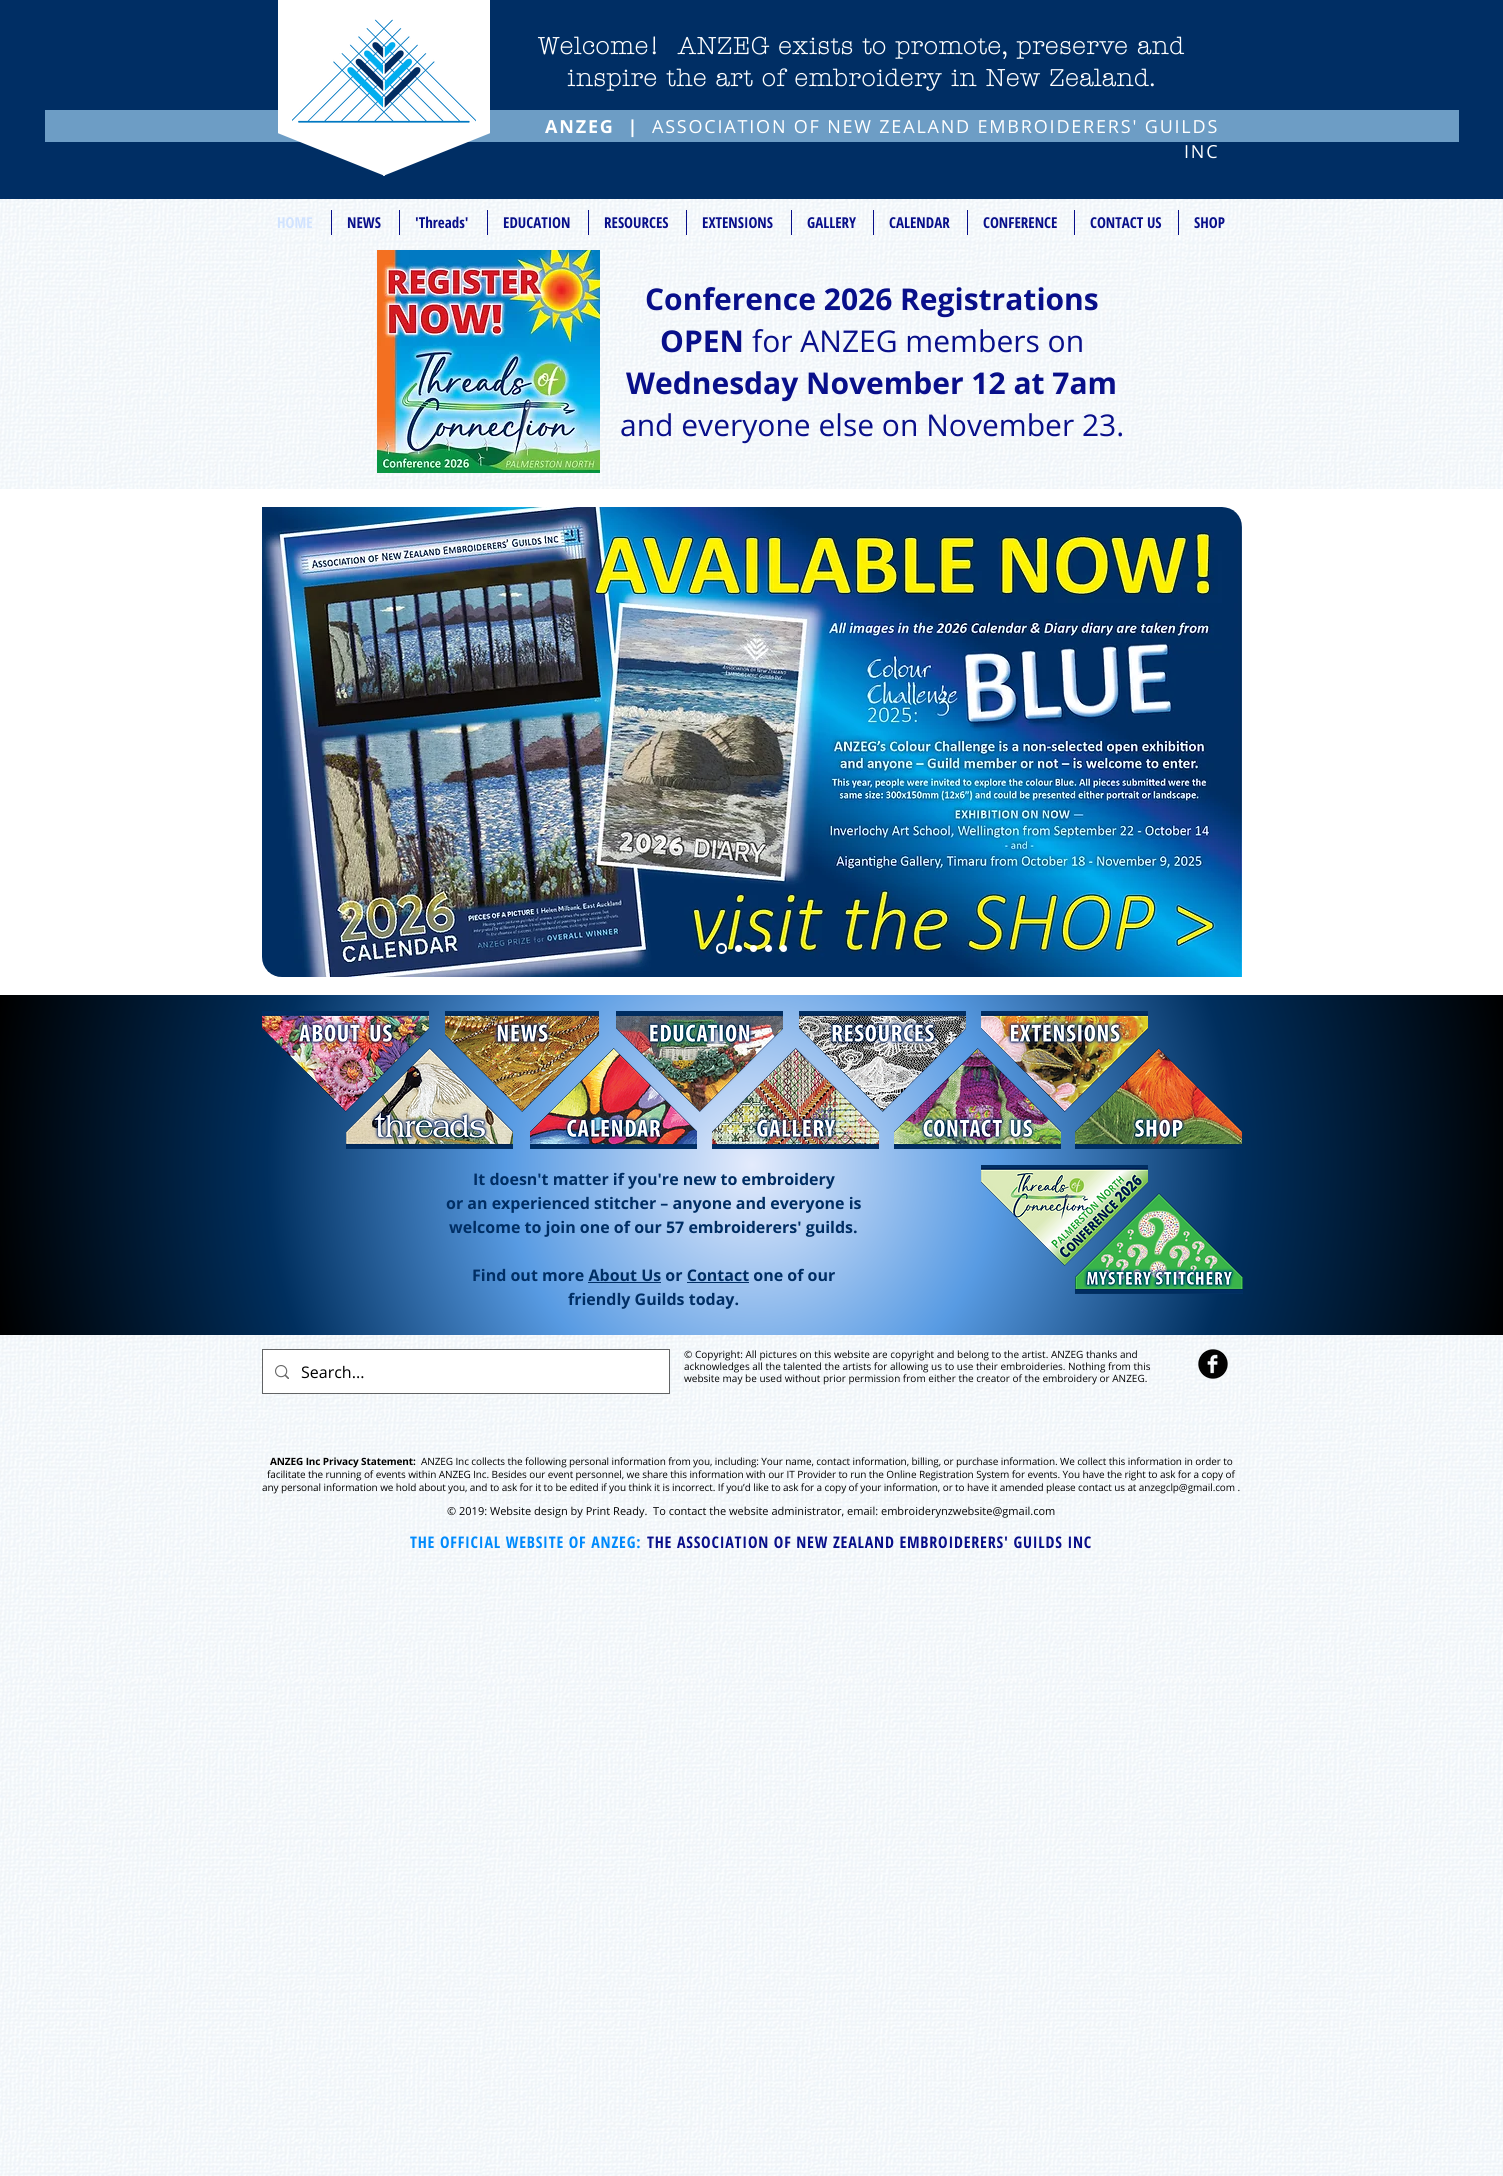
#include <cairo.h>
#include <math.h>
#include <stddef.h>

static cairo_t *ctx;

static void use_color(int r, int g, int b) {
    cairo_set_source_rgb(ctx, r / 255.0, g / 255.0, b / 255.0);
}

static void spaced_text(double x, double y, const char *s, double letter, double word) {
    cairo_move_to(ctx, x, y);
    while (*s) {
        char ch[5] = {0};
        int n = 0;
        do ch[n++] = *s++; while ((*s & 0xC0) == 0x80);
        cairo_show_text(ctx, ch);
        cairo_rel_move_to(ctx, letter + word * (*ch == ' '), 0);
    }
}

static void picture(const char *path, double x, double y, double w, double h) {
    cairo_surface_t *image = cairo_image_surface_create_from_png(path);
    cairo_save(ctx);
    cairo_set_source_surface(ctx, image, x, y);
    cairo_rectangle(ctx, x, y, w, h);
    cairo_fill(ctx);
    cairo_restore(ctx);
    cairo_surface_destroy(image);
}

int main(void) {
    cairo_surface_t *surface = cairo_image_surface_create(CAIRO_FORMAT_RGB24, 1503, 2176);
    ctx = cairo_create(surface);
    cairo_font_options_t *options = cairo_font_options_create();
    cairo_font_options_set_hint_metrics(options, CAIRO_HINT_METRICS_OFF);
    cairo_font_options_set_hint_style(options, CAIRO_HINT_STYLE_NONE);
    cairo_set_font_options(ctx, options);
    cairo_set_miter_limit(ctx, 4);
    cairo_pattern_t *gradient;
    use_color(255, 255, 255);
    cairo_paint(ctx);
    use_color(0, 46, 100);
    cairo_rectangle(ctx, 0, 0, 1503, 199);
    cairo_fill(ctx);
    use_color(109, 157, 197);
    cairo_rectangle(ctx, 45, 110, 1414, 32);
    cairo_fill(ctx);
    cairo_save(ctx);
    cairo_rectangle(ctx, 278, 0, 212, 177);
    cairo_clip(ctx);
    use_color(255, 255, 255);
    cairo_new_path(ctx);
    cairo_move_to(ctx, 383, 176);
    cairo_line_to(ctx, 383, -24);
    cairo_line_to(ctx, 883, -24);
    cairo_close_path(ctx);
    cairo_fill(ctx);
    cairo_new_path(ctx);
    cairo_move_to(ctx, 385, -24);
    cairo_line_to(ctx, 385, 176);
    cairo_line_to(ctx, -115, -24);
    cairo_close_path(ctx);
    cairo_fill(ctx);
    cairo_restore(ctx);
    picture("img1.png", 292, 19, 184, 104);
    cairo_select_font_face(ctx, "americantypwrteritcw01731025", CAIRO_FONT_SLANT_NORMAL, CAIRO_FONT_WEIGHT_BOLD);
    cairo_set_font_size(ctx, 24);
    use_color(255, 255, 255);
    spaced_text(538, 54, "Welcome!  ANZEG exists to promote, preserve and", 0.95, 0);
    spaced_text(567, 86, "inspire the art of embroidery in New Zealand.", 0.95, 0);
    cairo_select_font_face(ctx, "Open Sans", CAIRO_FONT_SLANT_NORMAL, CAIRO_FONT_WEIGHT_BOLD);
    cairo_set_font_size(ctx, 18);
    spaced_text(545, 133, "ANZEG  |", 1.8, 0);
    cairo_select_font_face(ctx, "Open Sans", CAIRO_FONT_SLANT_NORMAL, CAIRO_FONT_WEIGHT_NORMAL);
    spaced_text(652, 133, "ASSOCIATION OF NEW ZEALAND EMBROIDERERS' GUILDS", 1.8, 0);
    spaced_text(1184, 158, "INC", 1.8, 0);
    picture("img18.png", 0, 199, 1503, 1977);
    cairo_select_font_face(ctx, "Open Sans Condensed", CAIRO_FONT_SLANT_NORMAL, CAIRO_FONT_WEIGHT_BOLD);
    cairo_set_font_size(ctx, 15);
    use_color(209, 227, 255);
    cairo_move_to(ctx, 277, 228);
    cairo_show_text(ctx, "HOME");
    use_color(8, 15, 138);
    cairo_rectangle(ctx, 331, 210, 1, 25);
    cairo_fill(ctx);
    cairo_move_to(ctx, 347, 228);
    cairo_show_text(ctx, "NEWS");
    cairo_rectangle(ctx, 399, 210, 1, 25);
    cairo_fill(ctx);
    cairo_move_to(ctx, 415, 228);
    cairo_show_text(ctx, "'Threads'");
    cairo_rectangle(ctx, 487, 210, 1, 25);
    cairo_fill(ctx);
    cairo_move_to(ctx, 503, 228);
    cairo_show_text(ctx, "EDUCATION");
    cairo_rectangle(ctx, 588, 210, 1, 25);
    cairo_fill(ctx);
    cairo_move_to(ctx, 604, 228);
    cairo_show_text(ctx, "RESOURCES");
    cairo_rectangle(ctx, 686, 210, 1, 25);
    cairo_fill(ctx);
    cairo_move_to(ctx, 702, 228);
    cairo_show_text(ctx, "EXTENSIONS");
    cairo_rectangle(ctx, 791, 210, 1, 25);
    cairo_fill(ctx);
    cairo_move_to(ctx, 807, 228);
    cairo_show_text(ctx, "GALLERY");
    cairo_rectangle(ctx, 873, 210, 1, 25);
    cairo_fill(ctx);
    cairo_move_to(ctx, 889, 228);
    cairo_show_text(ctx, "CALENDAR");
    cairo_rectangle(ctx, 967, 210, 1, 25);
    cairo_fill(ctx);
    cairo_move_to(ctx, 983, 228);
    cairo_show_text(ctx, "CONFERENCE");
    cairo_rectangle(ctx, 1074, 210, 1, 25);
    cairo_fill(ctx);
    cairo_move_to(ctx, 1090, 228);
    cairo_show_text(ctx, "CONTACT US");
    cairo_rectangle(ctx, 1178, 210, 1, 25);
    cairo_fill(ctx);
    cairo_move_to(ctx, 1194, 228);
    cairo_show_text(ctx, "SHOP");
    picture("img2.png", 377, 250, 223, 223);
    cairo_select_font_face(ctx, "Open Sans", CAIRO_FONT_SLANT_NORMAL, CAIRO_FONT_WEIGHT_BOLD);
    cairo_set_font_size(ctx, 30);
    cairo_move_to(ctx, 645, 310);
    cairo_show_text(ctx, "Conference 2026 Registrations");
    cairo_move_to(ctx, 660, 352);
    cairo_show_text(ctx, "OPEN");
    cairo_select_font_face(ctx, "Open Sans", CAIRO_FONT_SLANT_NORMAL, CAIRO_FONT_WEIGHT_NORMAL);
    cairo_move_to(ctx, 752, 352);
    cairo_show_text(ctx, "for ANZEG members on");
    cairo_select_font_face(ctx, "Open Sans", CAIRO_FONT_SLANT_NORMAL, CAIRO_FONT_WEIGHT_BOLD);
    cairo_move_to(ctx, 626, 394);
    cairo_show_text(ctx, "Wednesday November 12 at 7am");
    cairo_select_font_face(ctx, "Open Sans", CAIRO_FONT_SLANT_NORMAL, CAIRO_FONT_WEIGHT_NORMAL);
    cairo_move_to(ctx, 620, 436);
    cairo_show_text(ctx, "and everyone else on November 23.");
    use_color(255, 255, 255);
    cairo_rectangle(ctx, 0, 489, 1503, 506);
    cairo_fill(ctx);
    picture("img3.png", 262, 507, 980, 470);
    cairo_arc(ctx, 721.5, 948.5, 4.5, 0, 2 * M_PI);
    cairo_stroke(ctx);
    cairo_arc(ctx, 738.5, 948.5, 3.5, 0, 2 * M_PI);
    cairo_fill(ctx);
    cairo_arc(ctx, 753.5, 948.5, 3.5, 0, 2 * M_PI);
    cairo_fill(ctx);
    cairo_arc(ctx, 768.5, 948.5, 3.5, 0, 2 * M_PI);
    cairo_fill(ctx);
    cairo_arc(ctx, 783.5, 948.5, 3.5, 0, 2 * M_PI);
    cairo_fill(ctx);
    gradient = cairo_pattern_create_radial(752, 1165, 0, 752, 1165, 770);
    cairo_pattern_add_color_stop_rgba(gradient, 0, 0.894, 0.922, 0.988, 1);
    cairo_pattern_add_color_stop_rgba(gradient, 0.32, 0.345, 0.608, 0.89, 1);
    cairo_pattern_add_color_stop_rgba(gradient, 0.63, 0, 0.184, 0.369, 1);
    cairo_pattern_add_color_stop_rgba(gradient, 1, 0, 0, 0, 1);
    cairo_set_source(ctx, gradient);
    cairo_pattern_destroy(gradient);
    cairo_rectangle(ctx, 0, 995, 1503, 340);
    cairo_fill(ctx);
    picture("img5.png", 346, 1048, 167, 101);
    picture("img4.png", 262, 1011, 167, 101);
    picture("img7.png", 530, 1048, 167, 101);
    picture("img6.png", 445, 1011, 154, 101);
    picture("img9.png", 712, 1048, 167, 101);
    picture("img8.png", 616, 1011, 167, 101);
    picture("img11.png", 894, 1048, 167, 101);
    picture("img10.png", 799, 1011, 167, 101);
    picture("img13.png", 1075, 1048, 167, 101);
    picture("img12.png", 981, 1011, 167, 101);
    cairo_select_font_face(ctx, "Open Sans", CAIRO_FONT_SLANT_NORMAL, CAIRO_FONT_WEIGHT_BOLD);
    cairo_set_font_size(ctx, 16);
    use_color(0, 46, 100);
    cairo_move_to(ctx, 473, 1185);
    cairo_show_text(ctx, "It doesn't matter if you're new to embroidery");
    cairo_move_to(ctx, 446, 1209);
    cairo_show_text(ctx, "or an experienced stitcher – anyone and everyone is");
    cairo_move_to(ctx, 449, 1233);
    cairo_show_text(ctx, "welcome to join one of our 57 embroiderers' guilds.");
    cairo_move_to(ctx, 472, 1281);
    cairo_show_text(ctx, "Find out more About Us or Contact one of our");
    cairo_rectangle(ctx, 588, 1282, 73, 1);
    cairo_fill(ctx);
    cairo_rectangle(ctx, 687, 1282, 62, 1);
    cairo_fill(ctx);
    cairo_move_to(ctx, 568, 1305);
    cairo_show_text(ctx, "friendly Guilds today.");
    picture("img14.png", 981, 1165, 167, 101);
    picture("img15.png", 1075, 1193, 168, 101);
    cairo_rectangle(ctx, 262.5, 1349.5, 407, 44);
    cairo_set_source_rgba(ctx, 0, 0, 0, 0.6);
    cairo_set_line_width(ctx, 1);
    cairo_stroke(ctx);
    use_color(255, 255, 255);
    cairo_rectangle(ctx, 263, 1350, 406, 43);
    cairo_fill(ctx);
    picture("img16.png", 275, 1365, 14, 14);
    cairo_select_font_face(ctx, "Open Sans", CAIRO_FONT_SLANT_NORMAL, CAIRO_FONT_WEIGHT_NORMAL);
    use_color(0, 0, 0);
    cairo_move_to(ctx, 301, 1378);
    cairo_show_text(ctx, "Search...");
    cairo_set_font_size(ctx, 10);
    cairo_move_to(ctx, 684, 1358);
    cairo_show_text(ctx, "© Copyright: All pictures on this website are copyright and belong to the artist. ANZEG thanks and");
    cairo_move_to(ctx, 684, 1370);
    cairo_show_text(ctx, "acknowledges all the talented the artists for allowing us to use their embroideries. Nothing from this");
    cairo_move_to(ctx, 684, 1382);
    cairo_show_text(ctx, "website may be used without prior permission from either the creator of the embroidery or ANZEG.");
    picture("img17.png", 1198, 1349, 30, 30);
    cairo_select_font_face(ctx, "Open Sans", CAIRO_FONT_SLANT_NORMAL, CAIRO_FONT_WEIGHT_BOLD);
    spaced_text(270, 1465, "ANZEG Inc Privacy Statement:", -0.1, 0);
    cairo_select_font_face(ctx, "Open Sans", CAIRO_FONT_SLANT_NORMAL, CAIRO_FONT_WEIGHT_NORMAL);
    spaced_text(421, 1465, "ANZEG Inc collects the following personal information from you, including: Your name, contact information, billing, or purchase information. We collect this information in order to", -0.1, 0);
    spaced_text(267, 1478, "facilitate the running of events within ANZEG Inc. Besides our event personnel, we share this information with our IT Provider to run the Online Registration System for events. You have the right to ask for a copy of", -0.1, 0);
    spaced_text(262, 1491, "any personal information we hold about you, and to ask for it to be edited if you think it is incorrect. If you’d like to ask for a copy of your information, or to have it amended please contact us at anzegclp@gmail.com .", -0.1, 0);
    cairo_set_font_size(ctx, 11);
    cairo_move_to(ctx, 447, 1515);
    cairo_show_text(ctx, "© 2019: Website design by Print Ready.  To contact the website administrator, email: embroiderynzwebsite@gmail.com");
    cairo_select_font_face(ctx, "Open Sans Condensed", CAIRO_FONT_SLANT_NORMAL, CAIRO_FONT_WEIGHT_BOLD);
    cairo_set_font_size(ctx, 16);
    use_color(0, 138, 252);
    spaced_text(410, 1548, "THE OFFICIAL WEBSITE OF ANZEG:", 0.8, 0);
    use_color(8, 15, 138);
    spaced_text(647, 1548, "THE ASSOCIATION OF NEW ZEALAND EMBROIDERERS' GUILDS INC", 0.8, 0);
    cairo_surface_write_to_png(surface, "result.png");
    cairo_font_options_destroy(options);
    cairo_destroy(ctx);
    cairo_surface_destroy(surface);
    return 0;
}
